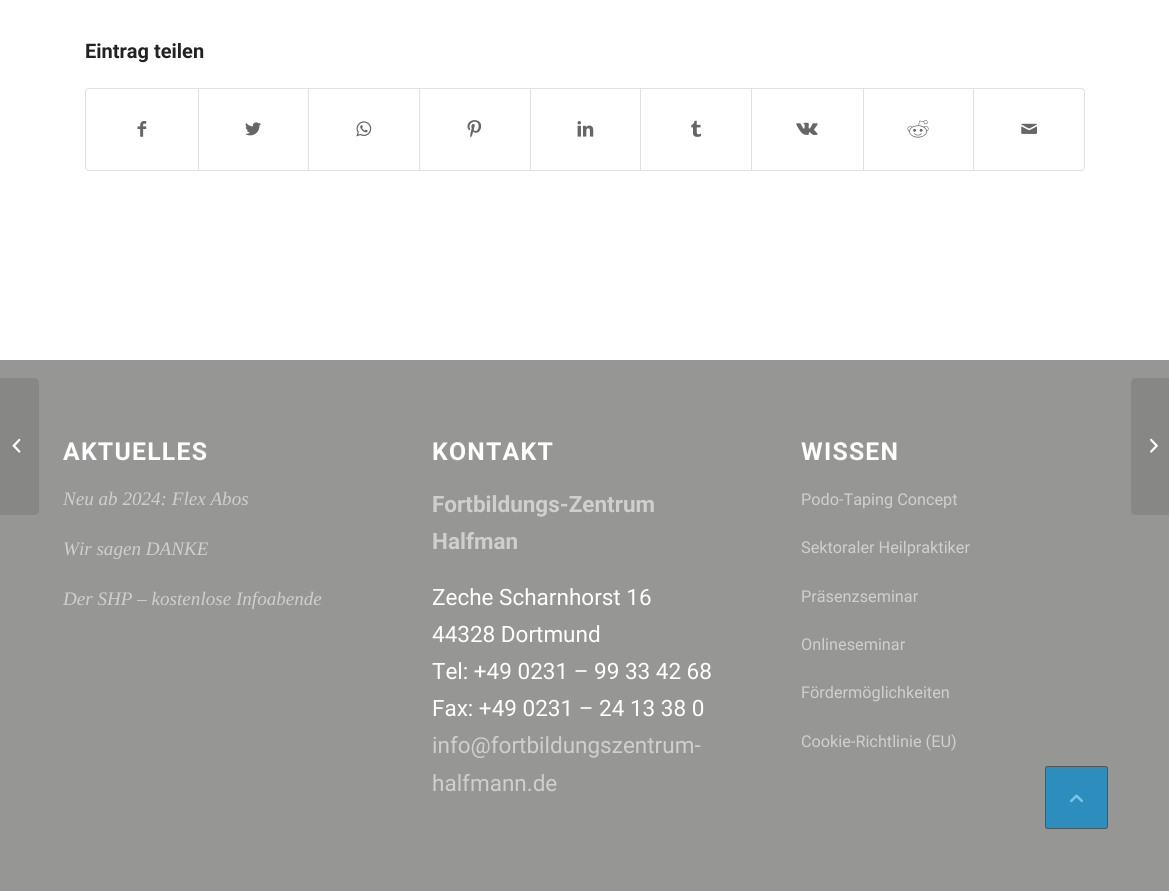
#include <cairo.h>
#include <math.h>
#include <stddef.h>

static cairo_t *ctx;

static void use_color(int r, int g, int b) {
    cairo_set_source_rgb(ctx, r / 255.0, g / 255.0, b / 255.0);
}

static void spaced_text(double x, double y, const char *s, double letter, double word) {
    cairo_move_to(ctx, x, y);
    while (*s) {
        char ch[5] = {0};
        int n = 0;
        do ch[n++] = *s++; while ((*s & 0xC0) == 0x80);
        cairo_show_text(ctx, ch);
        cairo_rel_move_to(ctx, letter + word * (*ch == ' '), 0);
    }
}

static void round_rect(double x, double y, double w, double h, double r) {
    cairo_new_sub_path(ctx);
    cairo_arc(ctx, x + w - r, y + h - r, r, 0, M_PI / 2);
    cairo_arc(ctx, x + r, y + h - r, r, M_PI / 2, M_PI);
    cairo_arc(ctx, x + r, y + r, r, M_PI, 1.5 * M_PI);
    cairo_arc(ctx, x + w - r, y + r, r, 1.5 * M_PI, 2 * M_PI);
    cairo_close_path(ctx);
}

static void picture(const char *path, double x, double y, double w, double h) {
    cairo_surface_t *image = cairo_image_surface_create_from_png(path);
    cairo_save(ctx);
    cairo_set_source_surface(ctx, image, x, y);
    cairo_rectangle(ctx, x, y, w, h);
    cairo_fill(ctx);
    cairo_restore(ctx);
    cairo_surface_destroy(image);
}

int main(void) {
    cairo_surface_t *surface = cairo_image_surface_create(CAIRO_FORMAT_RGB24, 1169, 891);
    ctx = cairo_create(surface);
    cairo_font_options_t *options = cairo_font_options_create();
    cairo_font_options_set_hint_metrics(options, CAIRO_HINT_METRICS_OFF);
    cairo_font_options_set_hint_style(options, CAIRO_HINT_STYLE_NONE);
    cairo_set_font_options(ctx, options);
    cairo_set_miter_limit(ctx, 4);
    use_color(255, 255, 255);
    cairo_paint(ctx);
    use_color(150, 150, 149);
    cairo_rectangle(ctx, 0, 360, 1169, 531);
    cairo_fill(ctx);
    use_color(135, 135, 134);
    cairo_new_path(ctx);
    cairo_move_to(ctx, 0, 378);
    cairo_line_to(ctx, 34, 378);
    cairo_curve_to(ctx, 37, 378, 39, 380, 39, 383);
    cairo_line_to(ctx, 39, 510);
    cairo_curve_to(ctx, 39, 513, 37, 515, 34, 515);
    cairo_line_to(ctx, 0, 515);
    cairo_close_path(ctx);
    cairo_fill(ctx);
    picture("img1.png", 12, 438, 9, 15);
    cairo_select_font_face(ctx, "Roboto", CAIRO_FONT_SLANT_NORMAL, CAIRO_FONT_WEIGHT_BOLD);
    cairo_set_font_size(ctx, 20);
    use_color(34, 34, 34);
    cairo_move_to(ctx, 85, 58);
    cairo_show_text(ctx, "Eintrag teilen");
    round_rect(85.5, 88.5, 999, 82, 3.5);
    use_color(225, 225, 225);
    cairo_set_line_width(ctx, 1);
    cairo_stroke(ctx);
    picture("img2.png", 137, 121, 10, 16);
    cairo_rectangle(ctx, 198, 89, 1, 81);
    cairo_fill(ctx);
    picture("img3.png", 245, 122, 16, 14);
    cairo_rectangle(ctx, 308, 89, 1, 81);
    cairo_fill(ctx);
    picture("img4.png", 356, 121, 16, 16);
    cairo_rectangle(ctx, 419, 89, 1, 81);
    cairo_fill(ctx);
    picture("img5.png", 467, 120, 15, 18);
    cairo_rectangle(ctx, 530, 89, 1, 81);
    cairo_fill(ctx);
    picture("img6.png", 577, 121, 17, 16);
    cairo_rectangle(ctx, 640, 89, 1, 81);
    cairo_fill(ctx);
    picture("img7.png", 691, 120, 11, 17);
    cairo_rectangle(ctx, 751, 89, 1, 81);
    cairo_fill(ctx);
    picture("img8.png", 796, 122, 22, 13);
    cairo_rectangle(ctx, 863, 89, 1, 81);
    cairo_fill(ctx);
    picture("img9.png", 907, 120, 22, 18);
    cairo_rectangle(ctx, 973, 89, 1, 81);
    cairo_fill(ctx);
    picture("img10.png", 1021, 123, 16, 11);
    cairo_set_font_size(ctx, 24.75);
    use_color(255, 255, 255);
    spaced_text(63, 460, "AKTUELLES", 1.25, 0);
    cairo_select_font_face(ctx, "Liberation Serif", CAIRO_FONT_SLANT_ITALIC, CAIRO_FONT_WEIGHT_NORMAL);
    cairo_set_font_size(ctx, 19.1);
    use_color(207, 207, 205);
    cairo_move_to(ctx, 63, 505);
    cairo_show_text(ctx, "Neu ab 2024: Flex Abos");
    cairo_move_to(ctx, 63, 555);
    cairo_show_text(ctx, "Wir sagen DANKE");
    cairo_move_to(ctx, 63, 605);
    cairo_show_text(ctx, "Der SHP – kostenlose Infoabende");
    cairo_select_font_face(ctx, "Roboto", CAIRO_FONT_SLANT_NORMAL, CAIRO_FONT_WEIGHT_BOLD);
    cairo_set_font_size(ctx, 24.75);
    use_color(255, 255, 255);
    spaced_text(432, 460, "KONTAKT", 1.25, 0);
    cairo_set_font_size(ctx, 22.5);
    use_color(207, 207, 205);
    cairo_move_to(ctx, 432, 512);
    cairo_show_text(ctx, "Fortbildungs-Zentrum");
    cairo_move_to(ctx, 432, 549);
    cairo_show_text(ctx, "Halfman");
    cairo_select_font_face(ctx, "Roboto", CAIRO_FONT_SLANT_NORMAL, CAIRO_FONT_WEIGHT_NORMAL);
    use_color(255, 255, 255);
    cairo_move_to(ctx, 432, 605);
    cairo_show_text(ctx, "Zeche Scharnhorst 16");
    cairo_move_to(ctx, 432, 642);
    cairo_show_text(ctx, "44328 Dortmund");
    cairo_move_to(ctx, 432, 679);
    cairo_show_text(ctx, "Tel: +49 0231 – 99 33 42 68");
    cairo_move_to(ctx, 432, 716);
    cairo_show_text(ctx, "Fax: +49 0231 – 24 13 38 0");
    use_color(207, 207, 205);
    cairo_move_to(ctx, 432, 753);
    cairo_show_text(ctx, "info@fortbildungszentrum-");
    cairo_move_to(ctx, 432, 791);
    cairo_show_text(ctx, "halfmann.de");
    cairo_select_font_face(ctx, "Roboto", CAIRO_FONT_SLANT_NORMAL, CAIRO_FONT_WEIGHT_BOLD);
    cairo_set_font_size(ctx, 24.75);
    use_color(255, 255, 255);
    spaced_text(801, 460, "WISSEN", 1.25, 0);
    cairo_select_font_face(ctx, "Roboto", CAIRO_FONT_SLANT_NORMAL, CAIRO_FONT_WEIGHT_NORMAL);
    cairo_set_font_size(ctx, 16.25);
    use_color(207, 207, 205);
    cairo_move_to(ctx, 801, 505);
    cairo_show_text(ctx, "Podo-Taping Concept");
    cairo_move_to(ctx, 801, 553);
    cairo_show_text(ctx, "Sektoraler Heilpraktiker");
    cairo_move_to(ctx, 801, 602);
    cairo_show_text(ctx, "Präsenzseminar");
    cairo_move_to(ctx, 801, 650);
    cairo_show_text(ctx, "Onlineseminar");
    cairo_move_to(ctx, 801, 698);
    cairo_show_text(ctx, "Fördermöglichkeiten");
    cairo_move_to(ctx, 801, 747);
    cairo_show_text(ctx, "Cookie-Richtlinie (EU)");
    use_color(135, 135, 134);
    cairo_new_path(ctx);
    cairo_move_to(ctx, 1136, 378);
    cairo_line_to(ctx, 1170, 378);
    cairo_line_to(ctx, 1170, 515);
    cairo_line_to(ctx, 1136, 515);
    cairo_curve_to(ctx, 1133, 515, 1131, 513, 1131, 510);
    cairo_line_to(ctx, 1131, 383);
    cairo_curve_to(ctx, 1131, 380, 1133, 378, 1136, 378);
    cairo_close_path(ctx);
    cairo_fill(ctx);
    picture("img11.png", 1150, 438, 8, 15);
    use_color(45, 142, 190);
    round_rect(1045.5, 766.5, 62, 62, 2);
    cairo_fill_preserve(ctx);
    use_color(84, 84, 83);
    cairo_stroke(ctx);
    picture("img12.png", 1070, 794, 13, 9);
    cairo_surface_write_to_png(surface, "result.png");
    cairo_font_options_destroy(options);
    cairo_destroy(ctx);
    cairo_surface_destroy(surface);
    return 0;
}
